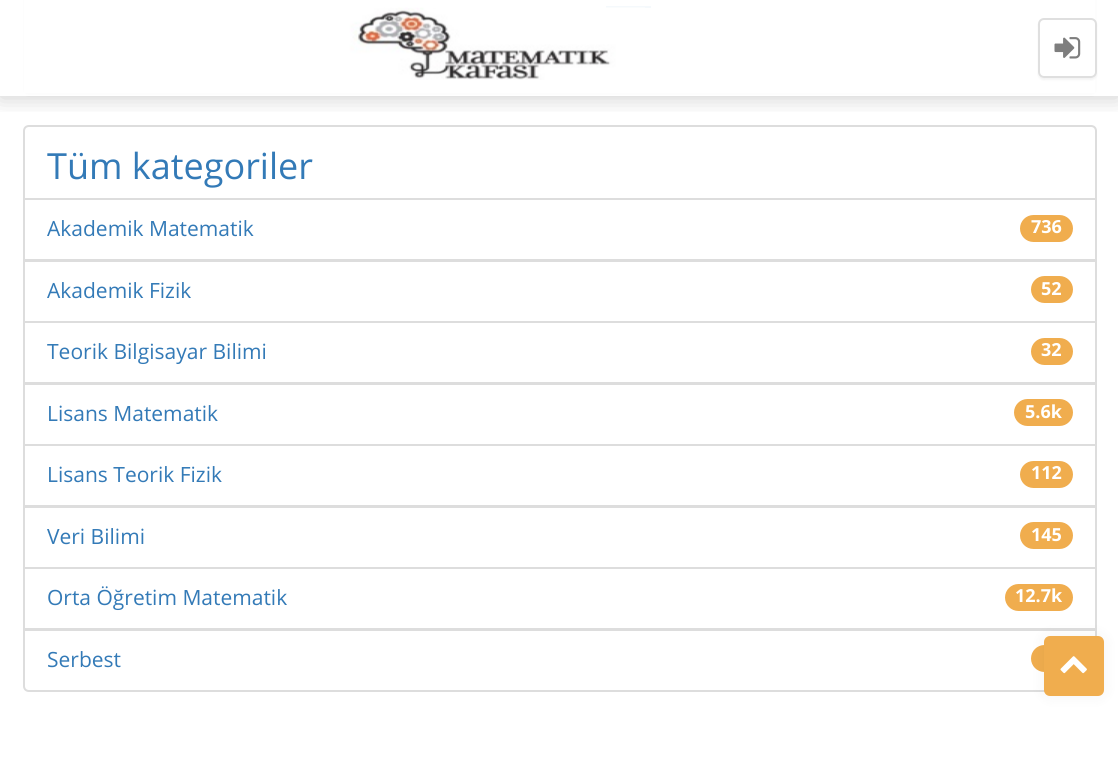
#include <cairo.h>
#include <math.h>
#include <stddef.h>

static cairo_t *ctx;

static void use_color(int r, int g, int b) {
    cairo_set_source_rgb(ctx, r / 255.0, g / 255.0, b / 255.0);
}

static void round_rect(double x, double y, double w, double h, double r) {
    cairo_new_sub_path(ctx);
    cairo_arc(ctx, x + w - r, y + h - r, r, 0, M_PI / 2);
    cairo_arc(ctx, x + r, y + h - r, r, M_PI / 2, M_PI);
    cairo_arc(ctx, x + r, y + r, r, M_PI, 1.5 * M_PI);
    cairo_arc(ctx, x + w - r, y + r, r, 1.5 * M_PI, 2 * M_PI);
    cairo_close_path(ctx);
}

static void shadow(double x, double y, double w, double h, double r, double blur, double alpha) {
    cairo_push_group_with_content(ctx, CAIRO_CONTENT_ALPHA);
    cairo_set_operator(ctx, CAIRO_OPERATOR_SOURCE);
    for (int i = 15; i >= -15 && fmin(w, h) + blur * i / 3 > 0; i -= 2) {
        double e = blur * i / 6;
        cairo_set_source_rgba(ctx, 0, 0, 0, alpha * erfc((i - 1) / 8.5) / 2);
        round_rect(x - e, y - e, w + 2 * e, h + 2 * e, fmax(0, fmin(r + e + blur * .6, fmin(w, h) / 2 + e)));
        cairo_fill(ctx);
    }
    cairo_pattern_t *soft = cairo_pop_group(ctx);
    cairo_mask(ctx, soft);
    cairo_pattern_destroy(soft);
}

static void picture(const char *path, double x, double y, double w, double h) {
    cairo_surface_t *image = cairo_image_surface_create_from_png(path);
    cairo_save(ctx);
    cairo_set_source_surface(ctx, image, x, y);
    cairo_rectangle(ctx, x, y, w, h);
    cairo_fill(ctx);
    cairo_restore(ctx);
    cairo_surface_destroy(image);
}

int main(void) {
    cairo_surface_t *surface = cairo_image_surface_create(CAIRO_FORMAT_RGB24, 1118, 773);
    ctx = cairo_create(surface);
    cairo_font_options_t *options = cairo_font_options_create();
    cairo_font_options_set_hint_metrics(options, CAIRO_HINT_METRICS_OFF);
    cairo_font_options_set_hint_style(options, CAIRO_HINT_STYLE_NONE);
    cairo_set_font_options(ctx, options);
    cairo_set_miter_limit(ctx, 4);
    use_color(255, 255, 255);
    cairo_paint(ctx);
    use_color(0, 0, 0);
    shadow(23, -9, 1074, 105, 6, 1, 0.05);
    round_rect(24, -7, 1072, 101, 5);
    use_color(221, 221, 221);
    cairo_stroke(ctx);
    use_color(255, 255, 255);
    cairo_rectangle(ctx, 24, 0, 1071, 93);
    cairo_fill(ctx);
    use_color(51, 122, 183);
    cairo_rectangle(ctx, 606, 6, 45, 2);
    cairo_fill(ctx);
    cairo_new_path(ctx);
    cairo_move_to(ctx, 29, 126);
    cairo_line_to(ctx, 1091, 126);
    cairo_curve_to(ctx, 1094, 126, 1096, 128, 1096, 131);
    cairo_line_to(ctx, 1096, 199);
    cairo_line_to(ctx, 24, 199);
    cairo_line_to(ctx, 24, 131);
    cairo_curve_to(ctx, 24, 128, 26, 126, 29, 126);
    cairo_close_path(ctx);
    use_color(221, 221, 221);
    cairo_stroke(ctx);
    cairo_save(ctx);
    cairo_rectangle(ctx, 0, 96, 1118, 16);
    cairo_clip(ctx);
    use_color(0, 0, 0);
    shadow(0, 2, 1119, 96, 0, 11, 0.19);
    cairo_restore(ctx);
    cairo_set_source_rgba(ctx, 1, 1, 1, 0.95);
    cairo_rectangle(ctx, 22, 0, 1076, 96);
    cairo_fill(ctx);
    picture("img1.png", 327, 7, 318, 73);
    cairo_save(ctx);
    cairo_set_fill_rule(ctx, CAIRO_FILL_RULE_EVEN_ODD);
    cairo_new_path(ctx);
    cairo_move_to(ctx, 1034, 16);
    cairo_line_to(ctx, 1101, 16);
    cairo_line_to(ctx, 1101, 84);
    cairo_line_to(ctx, 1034, 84);
    cairo_close_path(ctx);
    cairo_move_to(ctx, 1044, 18);
    cairo_line_to(ctx, 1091, 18);
    cairo_curve_to(ctx, 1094.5, 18, 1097, 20.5, 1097, 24);
    cairo_line_to(ctx, 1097, 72);
    cairo_curve_to(ctx, 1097, 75.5, 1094.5, 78, 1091, 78);
    cairo_line_to(ctx, 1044, 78);
    cairo_curve_to(ctx, 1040.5, 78, 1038, 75.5, 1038, 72);
    cairo_line_to(ctx, 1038, 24);
    cairo_curve_to(ctx, 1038, 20.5, 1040.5, 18, 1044, 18);
    cairo_close_path(ctx);
    cairo_clip(ctx);
    use_color(0, 0, 0);
    shadow(1038, 20, 59, 60, 6, 1, 0.05);
    cairo_restore(ctx);
    round_rect(1039, 19, 57, 58, 5);
    cairo_fill_preserve(ctx);
    use_color(223, 223, 223);
    cairo_stroke(ctx);
    picture("img2.png", 1054, 37, 27, 22);
    cairo_select_font_face(ctx, "Open Sans", CAIRO_FONT_SLANT_NORMAL, CAIRO_FONT_WEIGHT_NORMAL);
    cairo_set_font_size(ctx, 36);
    use_color(51, 122, 183);
    cairo_move_to(ctx, 47, 179);
    cairo_show_text(ctx, "Tüm kategoriler");
    cairo_rectangle(ctx, 24, 199, 1072, 61);
    use_color(221, 221, 221);
    cairo_stroke(ctx);
    cairo_set_font_size(ctx, 21);
    use_color(51, 122, 183);
    cairo_move_to(ctx, 47, 236);
    cairo_show_text(ctx, "Akademik Matematik");
    use_color(240, 173, 78);
    round_rect(1020, 215, 53, 27, 13.5);
    cairo_fill(ctx);
    cairo_select_font_face(ctx, "Open Sans", CAIRO_FONT_SLANT_NORMAL, CAIRO_FONT_WEIGHT_BOLD);
    cairo_set_font_size(ctx, 18);
    use_color(255, 255, 255);
    cairo_move_to(ctx, 1031, 233);
    cairo_show_text(ctx, "736");
    cairo_rectangle(ctx, 24, 261, 1072, 61);
    use_color(221, 221, 221);
    cairo_stroke(ctx);
    cairo_select_font_face(ctx, "Open Sans", CAIRO_FONT_SLANT_NORMAL, CAIRO_FONT_WEIGHT_NORMAL);
    cairo_set_font_size(ctx, 21);
    use_color(51, 122, 183);
    cairo_move_to(ctx, 47, 298);
    cairo_show_text(ctx, "Akademik Fizik");
    use_color(240, 173, 78);
    round_rect(1031, 276, 42, 27, 13.5);
    cairo_fill(ctx);
    cairo_select_font_face(ctx, "Open Sans", CAIRO_FONT_SLANT_NORMAL, CAIRO_FONT_WEIGHT_BOLD);
    cairo_set_font_size(ctx, 18);
    use_color(255, 255, 255);
    cairo_move_to(ctx, 1041, 295);
    cairo_show_text(ctx, "52");
    cairo_rectangle(ctx, 24, 322, 1072, 61);
    use_color(221, 221, 221);
    cairo_stroke(ctx);
    cairo_select_font_face(ctx, "Open Sans", CAIRO_FONT_SLANT_NORMAL, CAIRO_FONT_WEIGHT_NORMAL);
    cairo_set_font_size(ctx, 21);
    use_color(51, 122, 183);
    cairo_move_to(ctx, 47, 359);
    cairo_show_text(ctx, "Teorik Bilgisayar Bilimi");
    use_color(240, 173, 78);
    round_rect(1031, 338, 42, 27, 13.5);
    cairo_fill(ctx);
    cairo_select_font_face(ctx, "Open Sans", CAIRO_FONT_SLANT_NORMAL, CAIRO_FONT_WEIGHT_BOLD);
    cairo_set_font_size(ctx, 18);
    use_color(255, 255, 255);
    cairo_move_to(ctx, 1041, 356);
    cairo_show_text(ctx, "32");
    cairo_rectangle(ctx, 24, 384, 1072, 61);
    use_color(221, 221, 221);
    cairo_stroke(ctx);
    cairo_select_font_face(ctx, "Open Sans", CAIRO_FONT_SLANT_NORMAL, CAIRO_FONT_WEIGHT_NORMAL);
    cairo_set_font_size(ctx, 21);
    use_color(51, 122, 183);
    cairo_move_to(ctx, 47, 421);
    cairo_show_text(ctx, "Lisans Matematik");
    use_color(240, 173, 78);
    round_rect(1014, 399, 59, 27, 13.5);
    cairo_fill(ctx);
    cairo_select_font_face(ctx, "Open Sans", CAIRO_FONT_SLANT_NORMAL, CAIRO_FONT_WEIGHT_BOLD);
    cairo_set_font_size(ctx, 18);
    use_color(255, 255, 255);
    cairo_move_to(ctx, 1025, 418);
    cairo_show_text(ctx, "5.6k");
    cairo_rectangle(ctx, 24, 445, 1072, 61);
    use_color(221, 221, 221);
    cairo_stroke(ctx);
    cairo_select_font_face(ctx, "Open Sans", CAIRO_FONT_SLANT_NORMAL, CAIRO_FONT_WEIGHT_NORMAL);
    cairo_set_font_size(ctx, 21);
    use_color(51, 122, 183);
    cairo_move_to(ctx, 47, 482);
    cairo_show_text(ctx, "Lisans Teorik Fizik");
    use_color(240, 173, 78);
    round_rect(1020, 461, 53, 27, 13.5);
    cairo_fill(ctx);
    cairo_select_font_face(ctx, "Open Sans", CAIRO_FONT_SLANT_NORMAL, CAIRO_FONT_WEIGHT_BOLD);
    cairo_set_font_size(ctx, 18);
    use_color(255, 255, 255);
    cairo_move_to(ctx, 1031, 479);
    cairo_show_text(ctx, "112");
    cairo_rectangle(ctx, 24, 507, 1072, 61);
    use_color(221, 221, 221);
    cairo_stroke(ctx);
    cairo_select_font_face(ctx, "Open Sans", CAIRO_FONT_SLANT_NORMAL, CAIRO_FONT_WEIGHT_NORMAL);
    cairo_set_font_size(ctx, 21);
    use_color(51, 122, 183);
    cairo_move_to(ctx, 47, 544);
    cairo_show_text(ctx, "Veri Bilimi");
    use_color(240, 173, 78);
    round_rect(1020, 522, 53, 27, 13.5);
    cairo_fill(ctx);
    cairo_select_font_face(ctx, "Open Sans", CAIRO_FONT_SLANT_NORMAL, CAIRO_FONT_WEIGHT_BOLD);
    cairo_set_font_size(ctx, 18);
    use_color(255, 255, 255);
    cairo_move_to(ctx, 1031, 541);
    cairo_show_text(ctx, "145");
    cairo_rectangle(ctx, 24, 568, 1072, 61);
    use_color(221, 221, 221);
    cairo_stroke(ctx);
    cairo_select_font_face(ctx, "Open Sans", CAIRO_FONT_SLANT_NORMAL, CAIRO_FONT_WEIGHT_NORMAL);
    cairo_set_font_size(ctx, 21);
    use_color(51, 122, 183);
    cairo_move_to(ctx, 47, 605);
    cairo_show_text(ctx, "Orta Öğretim Matematik");
    use_color(240, 173, 78);
    round_rect(1005, 584, 68, 27, 13.5);
    cairo_fill(ctx);
    cairo_select_font_face(ctx, "Open Sans", CAIRO_FONT_SLANT_NORMAL, CAIRO_FONT_WEIGHT_BOLD);
    cairo_set_font_size(ctx, 18);
    use_color(255, 255, 255);
    cairo_move_to(ctx, 1015, 602);
    cairo_show_text(ctx, "12.7k");
    cairo_new_path(ctx);
    cairo_move_to(ctx, 24, 630);
    cairo_line_to(ctx, 1096, 630);
    cairo_line_to(ctx, 1096, 686);
    cairo_curve_to(ctx, 1096, 689, 1094, 691, 1091, 691);
    cairo_line_to(ctx, 29, 691);
    cairo_curve_to(ctx, 26, 691, 24, 689, 24, 686);
    cairo_close_path(ctx);
    cairo_fill_preserve(ctx);
    use_color(221, 221, 221);
    cairo_stroke(ctx);
    cairo_select_font_face(ctx, "Open Sans", CAIRO_FONT_SLANT_NORMAL, CAIRO_FONT_WEIGHT_NORMAL);
    cairo_set_font_size(ctx, 21);
    use_color(51, 122, 183);
    cairo_move_to(ctx, 47, 667);
    cairo_show_text(ctx, "Serbest");
    use_color(240, 173, 78);
    round_rect(1031, 645, 42, 27, 13.5);
    cairo_fill(ctx);
    use_color(0, 0, 0);
    shadow(1044, 636, 60, 60, 6, 7.5, 0.05);
    use_color(240, 173, 78);
    round_rect(1044, 636, 60, 60, 6);
    cairo_fill(ctx);
    picture("img3.png", 1060, 656, 27, 18);
    cairo_surface_write_to_png(surface, "result.png");
    cairo_font_options_destroy(options);
    cairo_destroy(ctx);
    cairo_surface_destroy(surface);
    return 0;
}
